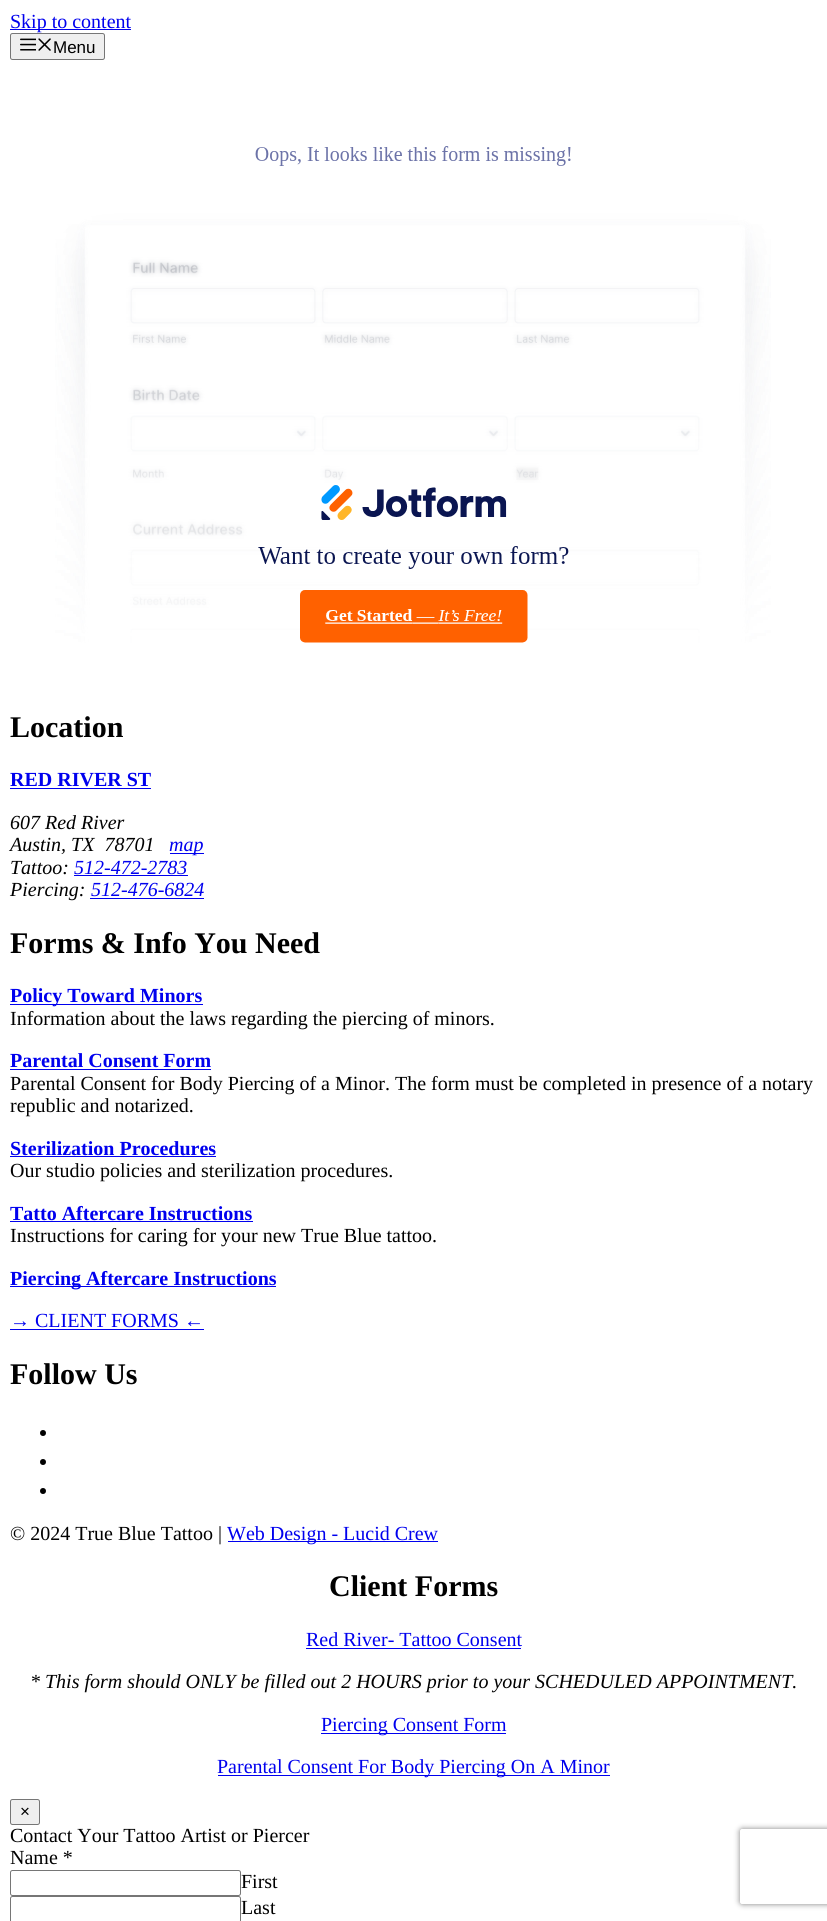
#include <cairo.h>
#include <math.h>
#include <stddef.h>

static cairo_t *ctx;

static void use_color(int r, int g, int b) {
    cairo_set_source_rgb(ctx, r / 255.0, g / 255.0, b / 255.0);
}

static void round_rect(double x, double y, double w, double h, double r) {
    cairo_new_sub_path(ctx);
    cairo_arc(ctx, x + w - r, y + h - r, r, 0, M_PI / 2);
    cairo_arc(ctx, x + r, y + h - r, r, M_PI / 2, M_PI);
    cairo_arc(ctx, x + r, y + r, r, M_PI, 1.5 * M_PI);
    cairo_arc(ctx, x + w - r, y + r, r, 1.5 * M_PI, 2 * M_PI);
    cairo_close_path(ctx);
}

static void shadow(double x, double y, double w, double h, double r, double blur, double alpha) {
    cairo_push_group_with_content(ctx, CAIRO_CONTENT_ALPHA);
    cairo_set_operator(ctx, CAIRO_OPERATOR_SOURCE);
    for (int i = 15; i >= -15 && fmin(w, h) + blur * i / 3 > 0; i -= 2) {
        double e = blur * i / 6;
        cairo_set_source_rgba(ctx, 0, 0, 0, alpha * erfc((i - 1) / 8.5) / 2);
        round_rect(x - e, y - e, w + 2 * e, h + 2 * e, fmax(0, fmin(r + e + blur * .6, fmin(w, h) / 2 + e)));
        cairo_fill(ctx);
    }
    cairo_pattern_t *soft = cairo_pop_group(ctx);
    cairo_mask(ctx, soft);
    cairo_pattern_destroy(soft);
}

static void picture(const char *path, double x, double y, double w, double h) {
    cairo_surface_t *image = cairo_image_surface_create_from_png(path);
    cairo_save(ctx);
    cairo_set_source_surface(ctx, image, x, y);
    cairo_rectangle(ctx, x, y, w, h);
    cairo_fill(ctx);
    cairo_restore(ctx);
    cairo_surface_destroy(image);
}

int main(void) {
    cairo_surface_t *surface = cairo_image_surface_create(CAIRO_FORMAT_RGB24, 827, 1921);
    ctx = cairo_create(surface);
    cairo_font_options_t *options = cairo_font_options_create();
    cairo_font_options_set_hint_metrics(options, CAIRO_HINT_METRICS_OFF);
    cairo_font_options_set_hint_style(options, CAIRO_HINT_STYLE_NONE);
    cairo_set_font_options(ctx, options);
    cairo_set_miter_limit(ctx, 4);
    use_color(255, 255, 255);
    cairo_paint(ctx);
    use_color(0, 0, 238);
    cairo_rectangle(ctx, 10, 29, 121, 1);
    cairo_fill(ctx);
    cairo_select_font_face(ctx, "Liberation Serif", CAIRO_FONT_SLANT_NORMAL, CAIRO_FONT_WEIGHT_NORMAL);
    cairo_set_font_size(ctx, 20);
    cairo_move_to(ctx, 10, 28);
    cairo_show_text(ctx, "Skip to content");
    use_color(239, 239, 239);
    round_rect(10.5, 33.5, 94, 26, 2);
    cairo_fill_preserve(ctx);
    use_color(118, 118, 118);
    cairo_set_line_width(ctx, 1);
    cairo_stroke(ctx);
    picture("img1.png", 20, 38, 16, 13);
    picture("img2.png", 38, 38, 13, 13);
    cairo_select_font_face(ctx, "Liberation Sans", CAIRO_FONT_SLANT_NORMAL, CAIRO_FONT_WEIGHT_NORMAL);
    cairo_set_font_size(ctx, 17);
    use_color(0, 0, 0);
    cairo_move_to(ctx, 53, 53);
    cairo_show_text(ctx, "Menu");
    picture("img3.png", 55, 146, 716, 497);
    cairo_select_font_face(ctx, "Liberation Serif", CAIRO_FONT_SLANT_NORMAL, CAIRO_FONT_WEIGHT_BOLD);
    cairo_set_font_size(ctx, 30);
    cairo_move_to(ctx, 10, 737);
    cairo_show_text(ctx, "Location");
    cairo_set_font_size(ctx, 20);
    use_color(0, 0, 238);
    cairo_move_to(ctx, 10, 786);
    cairo_show_text(ctx, "RED RIVER ST");
    cairo_rectangle(ctx, 10, 788, 141, 1);
    cairo_fill(ctx);
    cairo_select_font_face(ctx, "Liberation Serif", CAIRO_FONT_SLANT_ITALIC, CAIRO_FONT_WEIGHT_NORMAL);
    use_color(0, 0, 0);
    cairo_move_to(ctx, 10, 829);
    cairo_show_text(ctx, "607 Red River");
    cairo_move_to(ctx, 10, 851);
    cairo_show_text(ctx, "Austin, TX  78701");
    use_color(0, 0, 238);
    cairo_rectangle(ctx, 170, 853, 34, 1);
    cairo_fill(ctx);
    cairo_move_to(ctx, 169, 851);
    cairo_show_text(ctx, "map");
    use_color(0, 0, 0);
    cairo_move_to(ctx, 10, 874);
    cairo_show_text(ctx, "Tattoo:");
    use_color(0, 0, 238);
    cairo_move_to(ctx, 74, 874);
    cairo_show_text(ctx, "512-472-2783");
    cairo_rectangle(ctx, 74, 875, 114, 1);
    cairo_fill(ctx);
    use_color(0, 0, 0);
    cairo_move_to(ctx, 10, 896);
    cairo_show_text(ctx, "Piercing:");
    use_color(0, 0, 238);
    cairo_move_to(ctx, 91, 896);
    cairo_show_text(ctx, "512-476-6824");
    cairo_rectangle(ctx, 90, 898, 114, 1);
    cairo_fill(ctx);
    cairo_select_font_face(ctx, "Liberation Serif", CAIRO_FONT_SLANT_NORMAL, CAIRO_FONT_WEIGHT_BOLD);
    cairo_set_font_size(ctx, 30);
    use_color(0, 0, 0);
    cairo_move_to(ctx, 10, 953);
    cairo_show_text(ctx, "Forms & Info You Need");
    use_color(0, 0, 238);
    cairo_rectangle(ctx, 10, 1004, 193, 1);
    cairo_fill(ctx);
    cairo_set_font_size(ctx, 20);
    cairo_move_to(ctx, 10, 1002);
    cairo_show_text(ctx, "Policy Toward Minors");
    cairo_select_font_face(ctx, "Liberation Serif", CAIRO_FONT_SLANT_NORMAL, CAIRO_FONT_WEIGHT_NORMAL);
    use_color(0, 0, 0);
    cairo_move_to(ctx, 10, 1025);
    cairo_show_text(ctx, "Information about the laws regarding the piercing of minors.");
    cairo_select_font_face(ctx, "Liberation Serif", CAIRO_FONT_SLANT_NORMAL, CAIRO_FONT_WEIGHT_BOLD);
    use_color(0, 0, 238);
    cairo_move_to(ctx, 10, 1067);
    cairo_show_text(ctx, "Parental Consent Form");
    cairo_rectangle(ctx, 10, 1069, 201, 1);
    cairo_fill(ctx);
    cairo_select_font_face(ctx, "Liberation Serif", CAIRO_FONT_SLANT_NORMAL, CAIRO_FONT_WEIGHT_NORMAL);
    use_color(0, 0, 0);
    cairo_move_to(ctx, 10, 1090);
    cairo_show_text(ctx, "Parental Consent for Body Piercing of a Minor. The form must be completed in presence of a notary");
    cairo_move_to(ctx, 10, 1112);
    cairo_show_text(ctx, "republic and notarized.");
    cairo_select_font_face(ctx, "Liberation Serif", CAIRO_FONT_SLANT_NORMAL, CAIRO_FONT_WEIGHT_BOLD);
    use_color(0, 0, 238);
    cairo_move_to(ctx, 10, 1155);
    cairo_show_text(ctx, "Sterilization Procedures");
    cairo_rectangle(ctx, 10, 1156, 206, 1);
    cairo_fill(ctx);
    cairo_select_font_face(ctx, "Liberation Serif", CAIRO_FONT_SLANT_NORMAL, CAIRO_FONT_WEIGHT_NORMAL);
    use_color(0, 0, 0);
    cairo_move_to(ctx, 10, 1177);
    cairo_show_text(ctx, "Our studio policies and sterilization procedures.");
    cairo_select_font_face(ctx, "Liberation Serif", CAIRO_FONT_SLANT_NORMAL, CAIRO_FONT_WEIGHT_BOLD);
    use_color(0, 0, 238);
    cairo_move_to(ctx, 10, 1220);
    cairo_show_text(ctx, "Tatto Aftercare Instructions");
    cairo_rectangle(ctx, 10, 1221, 243, 1);
    cairo_fill(ctx);
    cairo_select_font_face(ctx, "Liberation Serif", CAIRO_FONT_SLANT_NORMAL, CAIRO_FONT_WEIGHT_NORMAL);
    use_color(0, 0, 0);
    cairo_move_to(ctx, 10, 1242);
    cairo_show_text(ctx, "Instructions for caring for your new True Blue tattoo.");
    use_color(0, 0, 238);
    cairo_rectangle(ctx, 10, 1286, 266, 1);
    cairo_fill(ctx);
    cairo_select_font_face(ctx, "Liberation Serif", CAIRO_FONT_SLANT_NORMAL, CAIRO_FONT_WEIGHT_BOLD);
    cairo_move_to(ctx, 10, 1285);
    cairo_show_text(ctx, "Piercing Aftercare Instructions");
    cairo_select_font_face(ctx, "Liberation Serif", CAIRO_FONT_SLANT_NORMAL, CAIRO_FONT_WEIGHT_NORMAL);
    cairo_move_to(ctx, 10, 1327);
    cairo_show_text(ctx, "→ CLIENT FORMS ←");
    cairo_rectangle(ctx, 10, 1329, 194, 1);
    cairo_fill(ctx);
    cairo_select_font_face(ctx, "Liberation Serif", CAIRO_FONT_SLANT_NORMAL, CAIRO_FONT_WEIGHT_BOLD);
    cairo_set_font_size(ctx, 30);
    use_color(0, 0, 0);
    cairo_move_to(ctx, 10, 1384);
    cairo_show_text(ctx, "Follow Us");
    cairo_new_path(ctx);
    cairo_arc(ctx, 43, 1433, 3, 0, 2 * M_PI);
    cairo_fill(ctx);
    cairo_arc(ctx, 43, 1462, 3, 0, 2 * M_PI);
    cairo_fill(ctx);
    cairo_arc(ctx, 43, 1491, 3, 0, 2 * M_PI);
    cairo_fill(ctx);
    cairo_select_font_face(ctx, "Liberation Serif", CAIRO_FONT_SLANT_NORMAL, CAIRO_FONT_WEIGHT_NORMAL);
    cairo_set_font_size(ctx, 20);
    cairo_move_to(ctx, 10, 1540);
    cairo_show_text(ctx, "© 2024 True Blue Tattoo |");
    use_color(0, 0, 238);
    cairo_rectangle(ctx, 228, 1541, 210, 1);
    cairo_fill(ctx);
    cairo_move_to(ctx, 227, 1540);
    cairo_show_text(ctx, "Web Design - Lucid Crew");
    cairo_select_font_face(ctx, "Liberation Serif", CAIRO_FONT_SLANT_NORMAL, CAIRO_FONT_WEIGHT_BOLD);
    cairo_set_font_size(ctx, 30);
    use_color(0, 0, 0);
    cairo_move_to(ctx, 329, 1596);
    cairo_show_text(ctx, "Client Forms");
    cairo_select_font_face(ctx, "Liberation Serif", CAIRO_FONT_SLANT_NORMAL, CAIRO_FONT_WEIGHT_NORMAL);
    cairo_set_font_size(ctx, 20);
    use_color(0, 0, 238);
    cairo_move_to(ctx, 306, 1646);
    cairo_show_text(ctx, "Red River- Tattoo Consent");
    cairo_rectangle(ctx, 306, 1648, 215, 1);
    cairo_fill(ctx);
    cairo_select_font_face(ctx, "Liberation Serif", CAIRO_FONT_SLANT_ITALIC, CAIRO_FONT_WEIGHT_NORMAL);
    use_color(0, 0, 0);
    cairo_move_to(ctx, 30, 1688);
    cairo_show_text(ctx, "* This form should ONLY be filled out 2 HOURS prior to your SCHEDULED APPOINTMENT.");
    use_color(0, 0, 238);
    cairo_rectangle(ctx, 321, 1733, 185, 1);
    cairo_fill(ctx);
    cairo_select_font_face(ctx, "Liberation Serif", CAIRO_FONT_SLANT_NORMAL, CAIRO_FONT_WEIGHT_NORMAL);
    cairo_move_to(ctx, 321, 1731);
    cairo_show_text(ctx, "Piercing Consent Form");
    cairo_rectangle(ctx, 218, 1775, 392, 1);
    cairo_fill(ctx);
    cairo_move_to(ctx, 217, 1773);
    cairo_show_text(ctx, "Parental Consent For Body Piercing On A Minor");
    use_color(239, 239, 239);
    round_rect(10.5, 1799.5, 29, 25, 2);
    cairo_fill_preserve(ctx);
    use_color(118, 118, 118);
    cairo_stroke(ctx);
    cairo_select_font_face(ctx, "Liberation Sans", CAIRO_FONT_SLANT_NORMAL, CAIRO_FONT_WEIGHT_NORMAL);
    cairo_set_font_size(ctx, 17);
    use_color(0, 0, 0);
    cairo_move_to(ctx, 20, 1817);
    cairo_show_text(ctx, "×");
    cairo_select_font_face(ctx, "Liberation Serif", CAIRO_FONT_SLANT_NORMAL, CAIRO_FONT_WEIGHT_NORMAL);
    cairo_set_font_size(ctx, 20);
    cairo_move_to(ctx, 10, 1842);
    cairo_show_text(ctx, "Contact Your Tattoo Artist or Piercer");
    cairo_move_to(ctx, 10, 1864);
    cairo_show_text(ctx, "Name *");
    round_rect(10.5, 1870.5, 230, 25, 2);
    use_color(118, 118, 118);
    cairo_stroke(ctx);
    use_color(0, 0, 0);
    cairo_move_to(ctx, 241, 1888);
    cairo_show_text(ctx, "First");
    round_rect(10.5, 1896.5, 230, 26, 2);
    use_color(118, 118, 118);
    cairo_stroke(ctx);
    use_color(0, 0, 0);
    cairo_move_to(ctx, 241, 1914);
    cairo_show_text(ctx, "Last");
    cairo_save(ctx);
    cairo_set_fill_rule(ctx, CAIRO_FILL_RULE_EVEN_ODD);
    cairo_new_path(ctx);
    cairo_move_to(ctx, 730, 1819);
    cairo_line_to(ctx, 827, 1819);
    cairo_line_to(ctx, 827, 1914);
    cairo_line_to(ctx, 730, 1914);
    cairo_close_path(ctx);
    cairo_move_to(ctx, 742.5, 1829);
    cairo_line_to(ctx, 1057.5, 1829);
    cairo_curve_to(ctx, 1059, 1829, 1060, 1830, 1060, 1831.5);
    cairo_line_to(ctx, 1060, 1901.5);
    cairo_curve_to(ctx, 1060, 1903, 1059, 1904, 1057.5, 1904);
    cairo_line_to(ctx, 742.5, 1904);
    cairo_curve_to(ctx, 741, 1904, 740, 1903, 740, 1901.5);
    cairo_line_to(ctx, 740, 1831.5);
    cairo_curve_to(ctx, 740, 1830, 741, 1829, 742.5, 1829);
    cairo_close_path(ctx);
    cairo_clip(ctx);
    use_color(128, 128, 128);
    shadow(740, 1829, 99, 75, 2.5, 3, 1);
    cairo_restore(ctx);
    cairo_surface_write_to_png(surface, "result.png");
    cairo_font_options_destroy(options);
    cairo_destroy(ctx);
    cairo_surface_destroy(surface);
    return 0;
}
